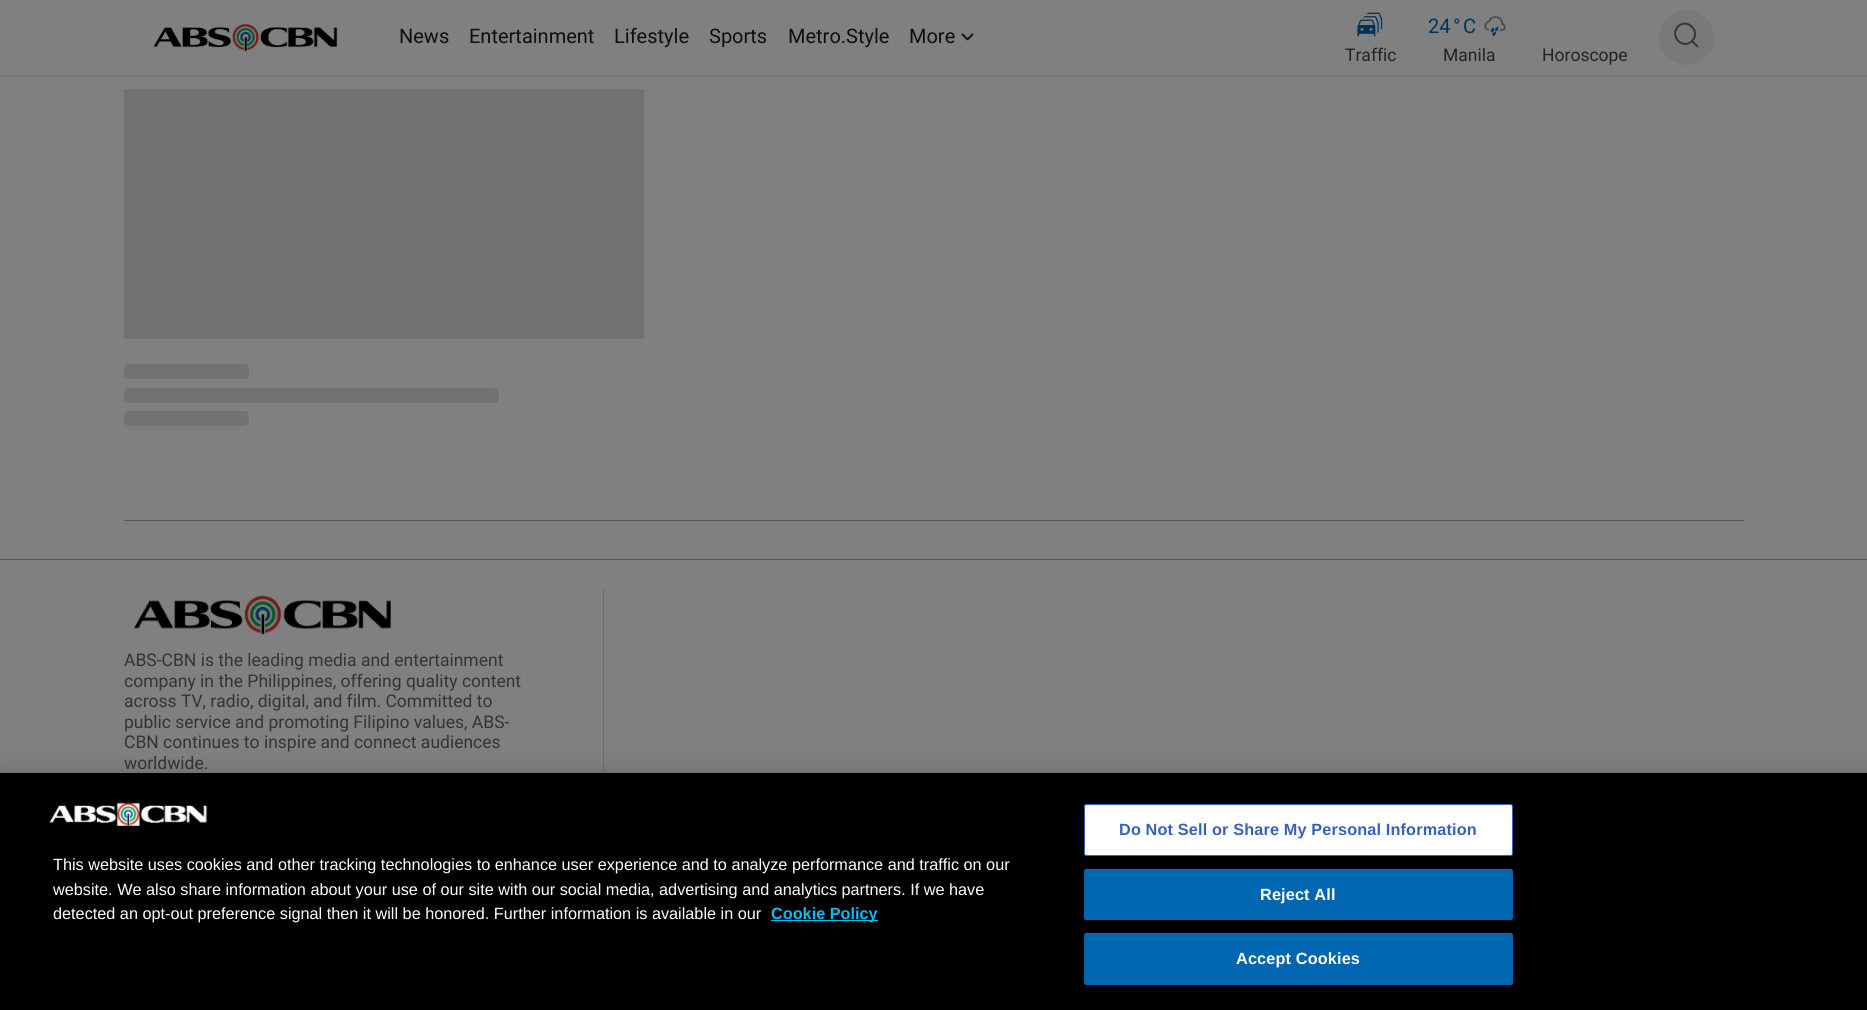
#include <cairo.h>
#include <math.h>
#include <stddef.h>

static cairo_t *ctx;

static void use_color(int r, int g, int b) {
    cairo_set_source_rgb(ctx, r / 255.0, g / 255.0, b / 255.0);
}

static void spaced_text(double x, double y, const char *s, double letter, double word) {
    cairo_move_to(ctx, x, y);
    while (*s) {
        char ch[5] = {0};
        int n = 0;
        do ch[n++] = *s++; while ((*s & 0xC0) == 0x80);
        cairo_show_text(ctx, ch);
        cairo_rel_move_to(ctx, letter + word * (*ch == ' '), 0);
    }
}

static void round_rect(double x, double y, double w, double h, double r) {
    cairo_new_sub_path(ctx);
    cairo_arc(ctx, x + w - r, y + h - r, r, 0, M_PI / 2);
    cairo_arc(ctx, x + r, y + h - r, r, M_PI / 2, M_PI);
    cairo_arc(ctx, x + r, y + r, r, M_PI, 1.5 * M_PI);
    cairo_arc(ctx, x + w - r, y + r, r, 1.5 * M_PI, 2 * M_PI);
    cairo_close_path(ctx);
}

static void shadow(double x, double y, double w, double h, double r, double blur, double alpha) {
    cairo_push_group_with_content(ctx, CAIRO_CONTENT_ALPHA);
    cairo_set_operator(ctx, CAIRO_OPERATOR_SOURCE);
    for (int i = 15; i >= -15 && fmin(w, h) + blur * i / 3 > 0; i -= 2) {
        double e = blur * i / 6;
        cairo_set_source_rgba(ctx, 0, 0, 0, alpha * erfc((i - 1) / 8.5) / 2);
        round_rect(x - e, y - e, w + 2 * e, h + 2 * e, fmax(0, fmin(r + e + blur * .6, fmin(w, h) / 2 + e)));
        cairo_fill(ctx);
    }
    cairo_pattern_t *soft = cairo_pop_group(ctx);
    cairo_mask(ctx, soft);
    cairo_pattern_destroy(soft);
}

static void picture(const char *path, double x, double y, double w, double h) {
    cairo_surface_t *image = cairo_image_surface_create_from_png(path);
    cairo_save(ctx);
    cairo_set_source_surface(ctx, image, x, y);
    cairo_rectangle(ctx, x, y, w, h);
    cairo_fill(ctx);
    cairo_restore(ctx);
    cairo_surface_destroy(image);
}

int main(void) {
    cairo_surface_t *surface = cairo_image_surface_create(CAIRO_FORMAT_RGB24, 1867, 1010);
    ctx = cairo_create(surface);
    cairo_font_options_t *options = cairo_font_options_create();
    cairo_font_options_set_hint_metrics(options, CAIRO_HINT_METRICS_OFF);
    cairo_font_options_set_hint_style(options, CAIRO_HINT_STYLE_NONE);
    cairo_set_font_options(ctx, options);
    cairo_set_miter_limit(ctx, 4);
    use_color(128, 128, 128);
    cairo_paint(ctx);
    use_color(52, 52, 52);
    shadow(0, 0, 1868, 75, 0, 2.5, 0.25);
    use_color(128, 128, 128);
    cairo_rectangle(ctx, 0, 0, 1867, 75);
    cairo_fill(ctx);
    picture("img1.png", 153, 23, 185, 29);
    cairo_select_font_face(ctx, "Roboto", CAIRO_FONT_SLANT_NORMAL, CAIRO_FONT_WEIGHT_NORMAL);
    cairo_set_font_size(ctx, 20);
    use_color(15, 15, 15);
    cairo_move_to(ctx, 399, 43);
    cairo_show_text(ctx, "News");
    cairo_move_to(ctx, 469, 43);
    cairo_show_text(ctx, "Entertainment");
    cairo_move_to(ctx, 614, 43);
    cairo_show_text(ctx, "Lifestyle");
    cairo_move_to(ctx, 709, 43);
    cairo_show_text(ctx, "Sports");
    cairo_move_to(ctx, 788, 43);
    cairo_show_text(ctx, "Metro.Style");
    cairo_move_to(ctx, 909, 43);
    cairo_show_text(ctx, "More");
    picture("img2.png", 961, 33, 13, 8);
    use_color(0, 51, 89);
    cairo_move_to(ctx, 1428, 33);
    cairo_show_text(ctx, "24");
    cairo_move_to(ctx, 1453, 33);
    cairo_show_text(ctx, "°");
    cairo_move_to(ctx, 1463, 33);
    cairo_show_text(ctx, "C");
    picture("img3.png", 1484, 15, 22, 22);
    cairo_set_font_size(ctx, 17.5);
    use_color(35, 35, 35);
    cairo_move_to(ctx, 1443, 61);
    cairo_show_text(ctx, "Manila");
    use_color(121, 121, 121);
    cairo_new_path(ctx);
    cairo_arc(ctx, 1686.5, 37.5, 27.5, 0, 2 * M_PI);
    cairo_fill(ctx);
    cairo_new_path(ctx);
    cairo_move_to(ctx, 1697.5, 46.5);
    cairo_line_to(ctx, 1692, 41);
    cairo_move_to(ctx, 1692, 41);
    cairo_curve_to(ctx, 1701.5, 31.5, 1687, 17.5, 1678, 26.5);
    cairo_curve_to(ctx, 1669, 36.5, 1683, 50, 1692, 41);
    cairo_close_path(ctx);
    use_color(52, 52, 52);
    cairo_set_line_width(ctx, 1.9);
    cairo_set_line_cap(ctx, CAIRO_LINE_CAP_ROUND);
    cairo_set_line_join(ctx, CAIRO_LINE_JOIN_ROUND);
    cairo_stroke(ctx);
    picture("img4.png", 1357, 12, 26, 25);
    use_color(35, 35, 35);
    cairo_move_to(ctx, 1345, 61);
    cairo_show_text(ctx, "Traffic");
    cairo_move_to(ctx, 1542, 61);
    cairo_show_text(ctx, "Horoscope");
    use_color(114, 114, 114);
    cairo_rectangle(ctx, 124, 89, 520, 250);
    cairo_fill(ctx);
    round_rect(124, 364, 125, 15, 5);
    cairo_fill(ctx);
    round_rect(124, 388, 375, 15, 5);
    cairo_fill(ctx);
    round_rect(124, 411, 125, 15, 5);
    cairo_fill(ctx);
    use_color(88, 88, 88);
    cairo_rectangle(ctx, 124, 520, 1620, 1);
    cairo_fill(ctx);
    cairo_rectangle(ctx, 0, 559, 1867, 1);
    cairo_fill(ctx);
    picture("img5.png", 134, 595, 257, 40);
    use_color(52, 52, 52);
    cairo_move_to(ctx, 124, 666);
    cairo_show_text(ctx, "ABS-CBN is the leading media and entertainment");
    cairo_move_to(ctx, 124, 687);
    cairo_show_text(ctx, "company in the Philippines, offering quality content");
    cairo_move_to(ctx, 124, 707);
    cairo_show_text(ctx, "across TV, radio, digital, and film. Committed to");
    cairo_move_to(ctx, 124, 728);
    cairo_show_text(ctx, "public service and promoting Filipino values, ABS-");
    cairo_move_to(ctx, 124, 748);
    cairo_show_text(ctx, "CBN continues to inspire and connect audiences");
    cairo_move_to(ctx, 124, 769);
    cairo_show_text(ctx, "worldwide.");
    use_color(108, 108, 108);
    cairo_rectangle(ctx, 603, 590, 1, 183);
    cairo_fill(ctx);
    use_color(0, 0, 0);
    shadow(0, 773, 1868, 237, 0, 11, 0.2);
    use_color(0, 0, 0);
    cairo_rectangle(ctx, 0, 773, 1867, 237);
    cairo_fill(ctx);
    picture("img6.png", 49, 802, 159, 24);
    cairo_select_font_face(ctx, "Liberation Sans", CAIRO_FONT_SLANT_NORMAL, CAIRO_FONT_WEIGHT_NORMAL);
    cairo_set_font_size(ctx, 16.25);
    use_color(255, 255, 255);
    cairo_move_to(ctx, 53, 870);
    cairo_show_text(ctx, "This website uses cookies and other tracking technologies to enhance user experience and to analyze performance and traffic on our");
    cairo_move_to(ctx, 53, 895);
    cairo_show_text(ctx, "website. We also share information about your use of our site with our social media, advertising and analytics partners. If we have");
    cairo_move_to(ctx, 53, 919);
    cairo_show_text(ctx, "detected an opt-out preference signal then it will be honored. Further information is available in our");
    use_color(3, 191, 243);
    cairo_rectangle(ctx, 771, 920, 107, 1);
    cairo_fill(ctx);
    cairo_select_font_face(ctx, "Liberation Sans", CAIRO_FONT_SLANT_NORMAL, CAIRO_FONT_WEIGHT_BOLD);
    cairo_move_to(ctx, 771, 919);
    cairo_show_text(ctx, "Cookie Policy");
    use_color(255, 255, 255);
    round_rect(1084.5, 804.5, 428, 51, 2);
    cairo_fill_preserve(ctx);
    use_color(56, 96, 190);
    cairo_set_line_width(ctx, 1);
    cairo_set_line_cap(ctx, CAIRO_LINE_CAP_BUTT);
    cairo_set_line_join(ctx, CAIRO_LINE_JOIN_MITER);
    cairo_stroke(ctx);
    spaced_text(1119, 835, "Do Not Sell or Share My Personal Information", 0.15, 0);
    use_color(0, 102, 178);
    round_rect(1084.5, 869.5, 428, 50, 2);
    cairo_fill_preserve(ctx);
    cairo_stroke(ctx);
    use_color(255, 255, 255);
    spaced_text(1260, 900, "Reject All", 0.15, 0);
    use_color(0, 102, 178);
    round_rect(1084.5, 933.5, 428, 51, 2);
    cairo_fill_preserve(ctx);
    cairo_stroke(ctx);
    use_color(255, 255, 255);
    spaced_text(1236, 964, "Accept Cookies", 0.15, 0);
    cairo_surface_write_to_png(surface, "result.png");
    cairo_font_options_destroy(options);
    cairo_destroy(ctx);
    cairo_surface_destroy(surface);
    return 0;
}
